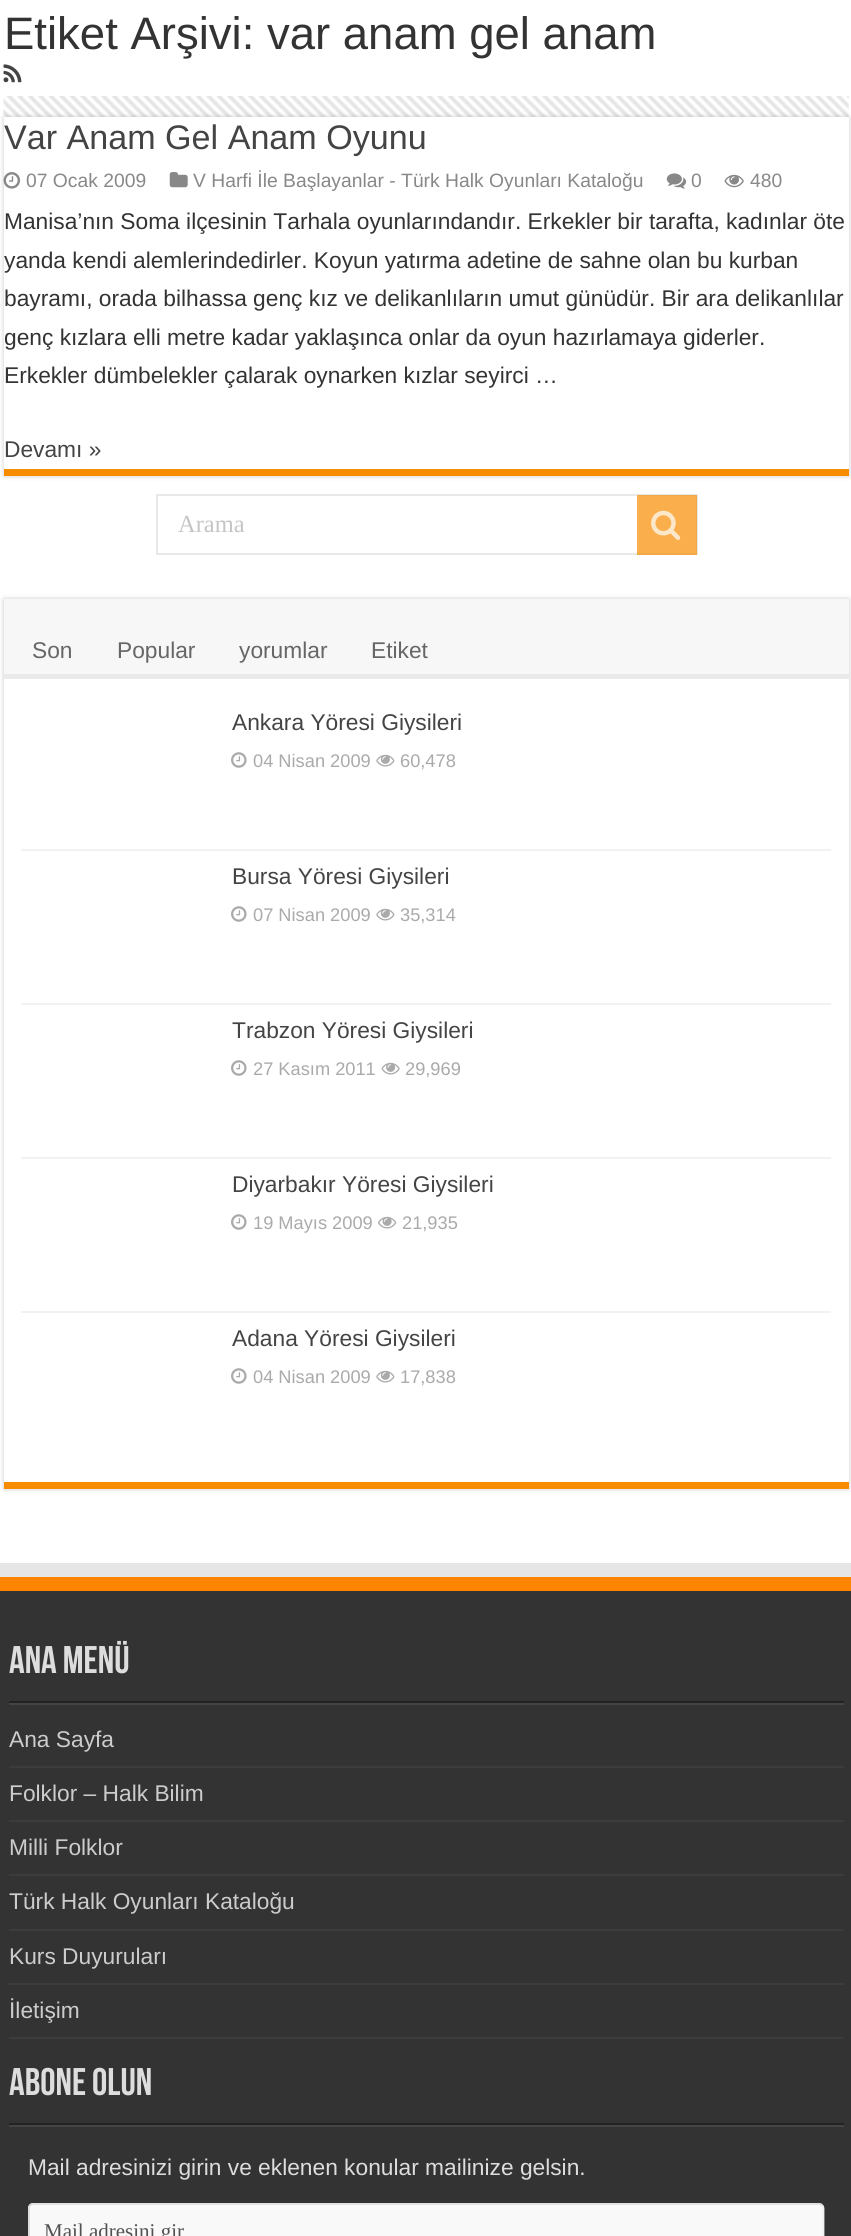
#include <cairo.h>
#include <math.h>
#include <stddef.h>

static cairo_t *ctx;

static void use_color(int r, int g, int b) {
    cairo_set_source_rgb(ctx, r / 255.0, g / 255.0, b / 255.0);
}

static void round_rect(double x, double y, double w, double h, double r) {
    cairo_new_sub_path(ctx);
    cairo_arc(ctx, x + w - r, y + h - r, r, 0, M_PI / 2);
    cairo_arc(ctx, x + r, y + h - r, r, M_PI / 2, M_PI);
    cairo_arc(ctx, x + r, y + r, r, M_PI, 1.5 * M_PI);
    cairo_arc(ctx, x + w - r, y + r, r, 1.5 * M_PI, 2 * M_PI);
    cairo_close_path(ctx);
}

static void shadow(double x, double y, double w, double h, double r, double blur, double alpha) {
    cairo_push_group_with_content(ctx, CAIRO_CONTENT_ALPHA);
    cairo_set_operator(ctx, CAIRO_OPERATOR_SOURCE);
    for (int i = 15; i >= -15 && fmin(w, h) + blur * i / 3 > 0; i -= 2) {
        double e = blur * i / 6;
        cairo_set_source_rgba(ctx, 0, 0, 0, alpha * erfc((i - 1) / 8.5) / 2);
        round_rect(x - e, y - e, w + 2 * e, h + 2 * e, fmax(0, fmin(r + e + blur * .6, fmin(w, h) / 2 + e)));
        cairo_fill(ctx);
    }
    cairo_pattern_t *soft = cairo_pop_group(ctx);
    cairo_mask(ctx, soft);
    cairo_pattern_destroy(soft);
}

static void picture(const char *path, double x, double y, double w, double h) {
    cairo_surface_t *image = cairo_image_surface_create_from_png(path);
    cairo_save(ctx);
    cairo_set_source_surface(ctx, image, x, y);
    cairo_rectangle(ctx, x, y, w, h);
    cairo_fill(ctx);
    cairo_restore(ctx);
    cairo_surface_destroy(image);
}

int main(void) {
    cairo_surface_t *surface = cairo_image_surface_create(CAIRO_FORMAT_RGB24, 851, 2236);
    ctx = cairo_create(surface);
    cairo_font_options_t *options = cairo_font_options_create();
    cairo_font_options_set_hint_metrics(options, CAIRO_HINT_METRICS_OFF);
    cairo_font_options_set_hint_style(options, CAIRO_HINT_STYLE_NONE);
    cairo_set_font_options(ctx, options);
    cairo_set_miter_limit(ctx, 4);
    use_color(255, 255, 255);
    cairo_paint(ctx);
    cairo_select_font_face(ctx, "Liberation Sans", CAIRO_FONT_SLANT_NORMAL, CAIRO_FONT_WEIGHT_NORMAL);
    cairo_set_font_size(ctx, 45.5);
    use_color(51, 51, 51);
    cairo_move_to(ctx, 4, 49);
    cairo_show_text(ctx, "Etiket Arşivi: var anam gel anam");
    picture("img1.png", 3, 64, 19, 19);
    use_color(202, 202, 202);
    shadow(4, 117, 845, 359, 0, 2.5, 1);
    picture("img2.png", 3, 96, 846, 21);
    use_color(255, 255, 255);
    cairo_rectangle(ctx, 4, 117, 845, 352);
    cairo_fill(ctx);
    use_color(248, 140, 0);
    cairo_rectangle(ctx, 4, 469, 845, 7);
    cairo_fill(ctx);
    cairo_set_font_size(ctx, 34.1);
    use_color(68, 68, 68);
    cairo_move_to(ctx, 4, 149);
    cairo_show_text(ctx, "Var Anam Gel Anam Oyunu");
    picture("img3.png", 3, 172, 18, 17);
    cairo_set_font_size(ctx, 19.3);
    use_color(136, 136, 136);
    cairo_move_to(ctx, 26, 187);
    cairo_show_text(ctx, "07 Ocak 2009");
    picture("img4.png", 169, 172, 19, 16);
    cairo_move_to(ctx, 193, 187);
    cairo_show_text(ctx, "V Harfi İle Başlayanlar - Türk Halk Oyunları Kataloğu");
    picture("img5.png", 666, 173, 21, 16);
    cairo_move_to(ctx, 691, 187);
    cairo_show_text(ctx, "0");
    picture("img6.png", 724, 174, 20, 14);
    cairo_move_to(ctx, 750, 187);
    cairo_show_text(ctx, "480");
    cairo_set_font_size(ctx, 22.75);
    use_color(51, 51, 51);
    cairo_move_to(ctx, 4, 229);
    cairo_show_text(ctx, "Manisa’nın Soma ilçesinin Tarhala oyunlarındandır. Erkekler bir tarafta, kadınlar öte");
    cairo_move_to(ctx, 4, 268);
    cairo_show_text(ctx, "yanda kendi alemlerindedirler. Koyun yatırma adetine de sahne olan bu kurban");
    cairo_move_to(ctx, 4, 306);
    cairo_show_text(ctx, "bayramı, orada bilhassa genç kız ve delikanlıların umut günüdür. Bir ara delikanlılar");
    cairo_move_to(ctx, 4, 345);
    cairo_show_text(ctx, "genç kızlara elli metre kadar yaklaşınca onlar da oyun hazırlamaya giderler.");
    cairo_move_to(ctx, 4, 383);
    cairo_show_text(ctx, "Erkekler dümbelekler çalarak oynarken kızlar seyirci …");
    use_color(68, 68, 68);
    cairo_move_to(ctx, 4, 457);
    cairo_show_text(ctx, "Devamı »");
    cairo_rectangle(ctx, 157, 495, 540, 59);
    use_color(232, 232, 232);
    cairo_stroke(ctx);
    cairo_select_font_face(ctx, "Liberation Serif", CAIRO_FONT_SLANT_NORMAL, CAIRO_FONT_WEIGHT_NORMAL);
    cairo_set_font_size(ctx, 24.5);
    use_color(197, 197, 197);
    cairo_move_to(ctx, 178, 532);
    cairo_show_text(ctx, "Arama");
    cairo_set_source_rgba(ctx, 0.973, 0.549, 0, 0.7);
    cairo_rectangle(ctx, 637, 495, 60, 60);
    cairo_fill(ctx);
    picture("img7.png", 651, 510, 30, 30);
    use_color(202, 202, 202);
    shadow(4, 599, 845, 890, 0, 2.5, 1);
    use_color(255, 255, 255);
    cairo_rectangle(ctx, 4, 679, 845, 803);
    cairo_fill(ctx);
    use_color(248, 140, 0);
    cairo_rectangle(ctx, 4, 1482, 845, 7);
    cairo_fill(ctx);
    use_color(247, 247, 247);
    cairo_rectangle(ctx, 4, 599, 845, 75);
    cairo_fill(ctx);
    use_color(234, 234, 234);
    cairo_rectangle(ctx, 4, 674, 845, 5);
    cairo_fill(ctx);
    cairo_select_font_face(ctx, "Liberation Sans", CAIRO_FONT_SLANT_NORMAL, CAIRO_FONT_WEIGHT_NORMAL);
    cairo_set_font_size(ctx, 22.75);
    use_color(102, 102, 102);
    cairo_move_to(ctx, 32, 658);
    cairo_show_text(ctx, "Son");
    cairo_move_to(ctx, 117, 658);
    cairo_show_text(ctx, "Popular");
    cairo_move_to(ctx, 239, 658);
    cairo_show_text(ctx, "yorumlar");
    cairo_move_to(ctx, 371, 658);
    cairo_show_text(ctx, "Etiket");
    use_color(242, 242, 242);
    cairo_rectangle(ctx, 21, 849, 810, 2);
    cairo_fill(ctx);
    use_color(68, 68, 68);
    cairo_move_to(ctx, 232, 730);
    cairo_show_text(ctx, "Ankara Yöresi Giysileri");
    picture("img8.png", 231, 752, 16, 16);
    cairo_set_font_size(ctx, 18.25);
    use_color(170, 170, 170);
    cairo_move_to(ctx, 253, 767);
    cairo_show_text(ctx, "04 Nisan 2009");
    picture("img9.png", 376, 754, 19, 13);
    cairo_move_to(ctx, 400, 767);
    cairo_show_text(ctx, "60,478");
    use_color(242, 242, 242);
    cairo_rectangle(ctx, 21, 1003, 810, 2);
    cairo_fill(ctx);
    cairo_set_font_size(ctx, 22.75);
    use_color(68, 68, 68);
    cairo_move_to(ctx, 232, 884);
    cairo_show_text(ctx, "Bursa Yöresi Giysileri");
    picture("img8.png", 231, 906, 16, 16);
    cairo_set_font_size(ctx, 18.25);
    use_color(170, 170, 170);
    cairo_move_to(ctx, 253, 921);
    cairo_show_text(ctx, "07 Nisan 2009");
    picture("img9.png", 376, 908, 19, 13);
    cairo_move_to(ctx, 400, 921);
    cairo_show_text(ctx, "35,314");
    use_color(242, 242, 242);
    cairo_rectangle(ctx, 21, 1157, 810, 2);
    cairo_fill(ctx);
    cairo_set_font_size(ctx, 22.75);
    use_color(68, 68, 68);
    cairo_move_to(ctx, 232, 1038);
    cairo_show_text(ctx, "Trabzon Yöresi Giysileri");
    picture("img8.png", 231, 1060, 16, 16);
    cairo_set_font_size(ctx, 18.25);
    use_color(170, 170, 170);
    cairo_move_to(ctx, 253, 1075);
    cairo_show_text(ctx, "27 Kasım 2011");
    picture("img10.png", 381, 1062, 19, 13);
    cairo_move_to(ctx, 405, 1075);
    cairo_show_text(ctx, "29,969");
    use_color(242, 242, 242);
    cairo_rectangle(ctx, 21, 1311, 810, 2);
    cairo_fill(ctx);
    cairo_set_font_size(ctx, 22.75);
    use_color(68, 68, 68);
    cairo_move_to(ctx, 232, 1192);
    cairo_show_text(ctx, "Diyarbakır Yöresi Giysileri");
    picture("img8.png", 231, 1214, 16, 16);
    cairo_set_font_size(ctx, 18.25);
    use_color(170, 170, 170);
    cairo_move_to(ctx, 253, 1229);
    cairo_show_text(ctx, "19 Mayıs 2009");
    picture("img11.png", 378, 1216, 19, 13);
    cairo_move_to(ctx, 402, 1229);
    cairo_show_text(ctx, "21,935");
    cairo_set_font_size(ctx, 22.75);
    use_color(68, 68, 68);
    cairo_move_to(ctx, 232, 1346);
    cairo_show_text(ctx, "Adana Yöresi Giysileri");
    picture("img8.png", 231, 1368, 16, 16);
    cairo_set_font_size(ctx, 18.25);
    use_color(170, 170, 170);
    cairo_move_to(ctx, 253, 1383);
    cairo_show_text(ctx, "04 Nisan 2009");
    picture("img9.png", 376, 1370, 19, 13);
    cairo_move_to(ctx, 400, 1383);
    cairo_show_text(ctx, "17,838");
    use_color(230, 230, 230);
    cairo_rectangle(ctx, 0, 1563, 851, 14);
    cairo_fill(ctx);
    use_color(51, 51, 51);
    cairo_rectangle(ctx, 0, 1591, 851, 645);
    cairo_fill(ctx);
    use_color(255, 133, 0);
    cairo_rectangle(ctx, 0, 1577, 851, 14);
    cairo_fill(ctx);
    use_color(34, 34, 34);
    cairo_rectangle(ctx, 9, 1701, 835, 2);
    cairo_fill(ctx);
    cairo_select_font_face(ctx, "Bebas Neue", CAIRO_FONT_SLANT_NORMAL, CAIRO_FONT_WEIGHT_BOLD);
    cairo_set_font_size(ctx, 38.5);
    use_color(221, 221, 221);
    cairo_move_to(ctx, 9, 1673);
    cairo_show_text(ctx, "Ana Menü");
    use_color(68, 68, 68);
    cairo_rectangle(ctx, 9, 1703, 835, 2);
    cairo_fill(ctx);
    use_color(60, 60, 60);
    cairo_rectangle(ctx, 9, 1766, 835, 2);
    cairo_fill(ctx);
    cairo_select_font_face(ctx, "Liberation Sans", CAIRO_FONT_SLANT_NORMAL, CAIRO_FONT_WEIGHT_NORMAL);
    cairo_set_font_size(ctx, 22.75);
    use_color(204, 204, 204);
    cairo_move_to(ctx, 9, 1747);
    cairo_show_text(ctx, "Ana Sayfa");
    use_color(60, 60, 60);
    cairo_rectangle(ctx, 9, 1820, 835, 2);
    cairo_fill(ctx);
    use_color(204, 204, 204);
    cairo_move_to(ctx, 9, 1801);
    cairo_show_text(ctx, "Folklor – Halk Bilim");
    use_color(60, 60, 60);
    cairo_rectangle(ctx, 9, 1874, 835, 2);
    cairo_fill(ctx);
    use_color(204, 204, 204);
    cairo_move_to(ctx, 9, 1855);
    cairo_show_text(ctx, "Milli Folklor");
    use_color(60, 60, 60);
    cairo_rectangle(ctx, 9, 1929, 835, 2);
    cairo_fill(ctx);
    use_color(204, 204, 204);
    cairo_move_to(ctx, 9, 1909);
    cairo_show_text(ctx, "Türk Halk Oyunları Kataloğu");
    use_color(60, 60, 60);
    cairo_rectangle(ctx, 9, 1983, 835, 2);
    cairo_fill(ctx);
    use_color(204, 204, 204);
    cairo_move_to(ctx, 9, 1964);
    cairo_show_text(ctx, "Kurs Duyuruları");
    use_color(60, 60, 60);
    cairo_rectangle(ctx, 9, 2037, 835, 2);
    cairo_fill(ctx);
    use_color(204, 204, 204);
    cairo_move_to(ctx, 9, 2018);
    cairo_show_text(ctx, "İletişim");
    use_color(34, 34, 34);
    cairo_rectangle(ctx, 9, 2123, 835, 2);
    cairo_fill(ctx);
    cairo_select_font_face(ctx, "Bebas Neue", CAIRO_FONT_SLANT_NORMAL, CAIRO_FONT_WEIGHT_BOLD);
    cairo_set_font_size(ctx, 38.5);
    use_color(221, 221, 221);
    cairo_move_to(ctx, 9, 2095);
    cairo_show_text(ctx, "Abone Olun");
    use_color(68, 68, 68);
    cairo_rectangle(ctx, 9, 2125, 835, 2);
    cairo_fill(ctx);
    cairo_select_font_face(ctx, "Liberation Sans", CAIRO_FONT_SLANT_NORMAL, CAIRO_FONT_WEIGHT_NORMAL);
    cairo_set_font_size(ctx, 22.75);
    use_color(221, 221, 221);
    cairo_move_to(ctx, 28, 2175);
    cairo_show_text(ctx, "Mail adresinizi girin ve eklenen konular mailinize gelsin.");
    use_color(249, 249, 249);
    round_rect(28, 2203, 796, 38, 5);
    cairo_fill(ctx);
    cairo_new_path(ctx);
    cairo_move_to(ctx, 822, 2205.5);
    cairo_curve_to(ctx, 823, 2206, 823.5, 2207.5, 823.5, 2208.5);
    cairo_line_to(ctx, 823.5, 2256);
    cairo_curve_to(ctx, 823.5, 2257, 823, 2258, 822, 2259);
    cairo_curve_to(ctx, 821.5, 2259.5, 820, 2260, 819, 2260);
    cairo_line_to(ctx, 33, 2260);
    cairo_curve_to(ctx, 32, 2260, 31, 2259.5, 30, 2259);
    use_color(241, 241, 241);
    cairo_set_line_width(ctx, 1.8);
    cairo_stroke(ctx);
    cairo_new_path(ctx);
    cairo_move_to(ctx, 30, 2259);
    cairo_curve_to(ctx, 29.5, 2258, 29, 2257, 29, 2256);
    cairo_line_to(ctx, 29, 2208.5);
    cairo_curve_to(ctx, 29, 2207.5, 29.5, 2206, 30, 2205.5);
    cairo_curve_to(ctx, 31, 2204.5, 32, 2204, 33, 2204);
    cairo_line_to(ctx, 819, 2204);
    cairo_curve_to(ctx, 820, 2204, 821.5, 2204.5, 822, 2205.5);
    use_color(221, 221, 221);
    cairo_stroke(ctx);
    cairo_select_font_face(ctx, "Liberation Serif", CAIRO_FONT_SLANT_NORMAL, CAIRO_FONT_WEIGHT_NORMAL);
    cairo_set_font_size(ctx, 21);
    use_color(81, 81, 81);
    cairo_move_to(ctx, 44, 2238);
    cairo_show_text(ctx, "Mail adresini gir");
    cairo_surface_write_to_png(surface, "result.png");
    cairo_font_options_destroy(options);
    cairo_destroy(ctx);
    cairo_surface_destroy(surface);
    return 0;
}
